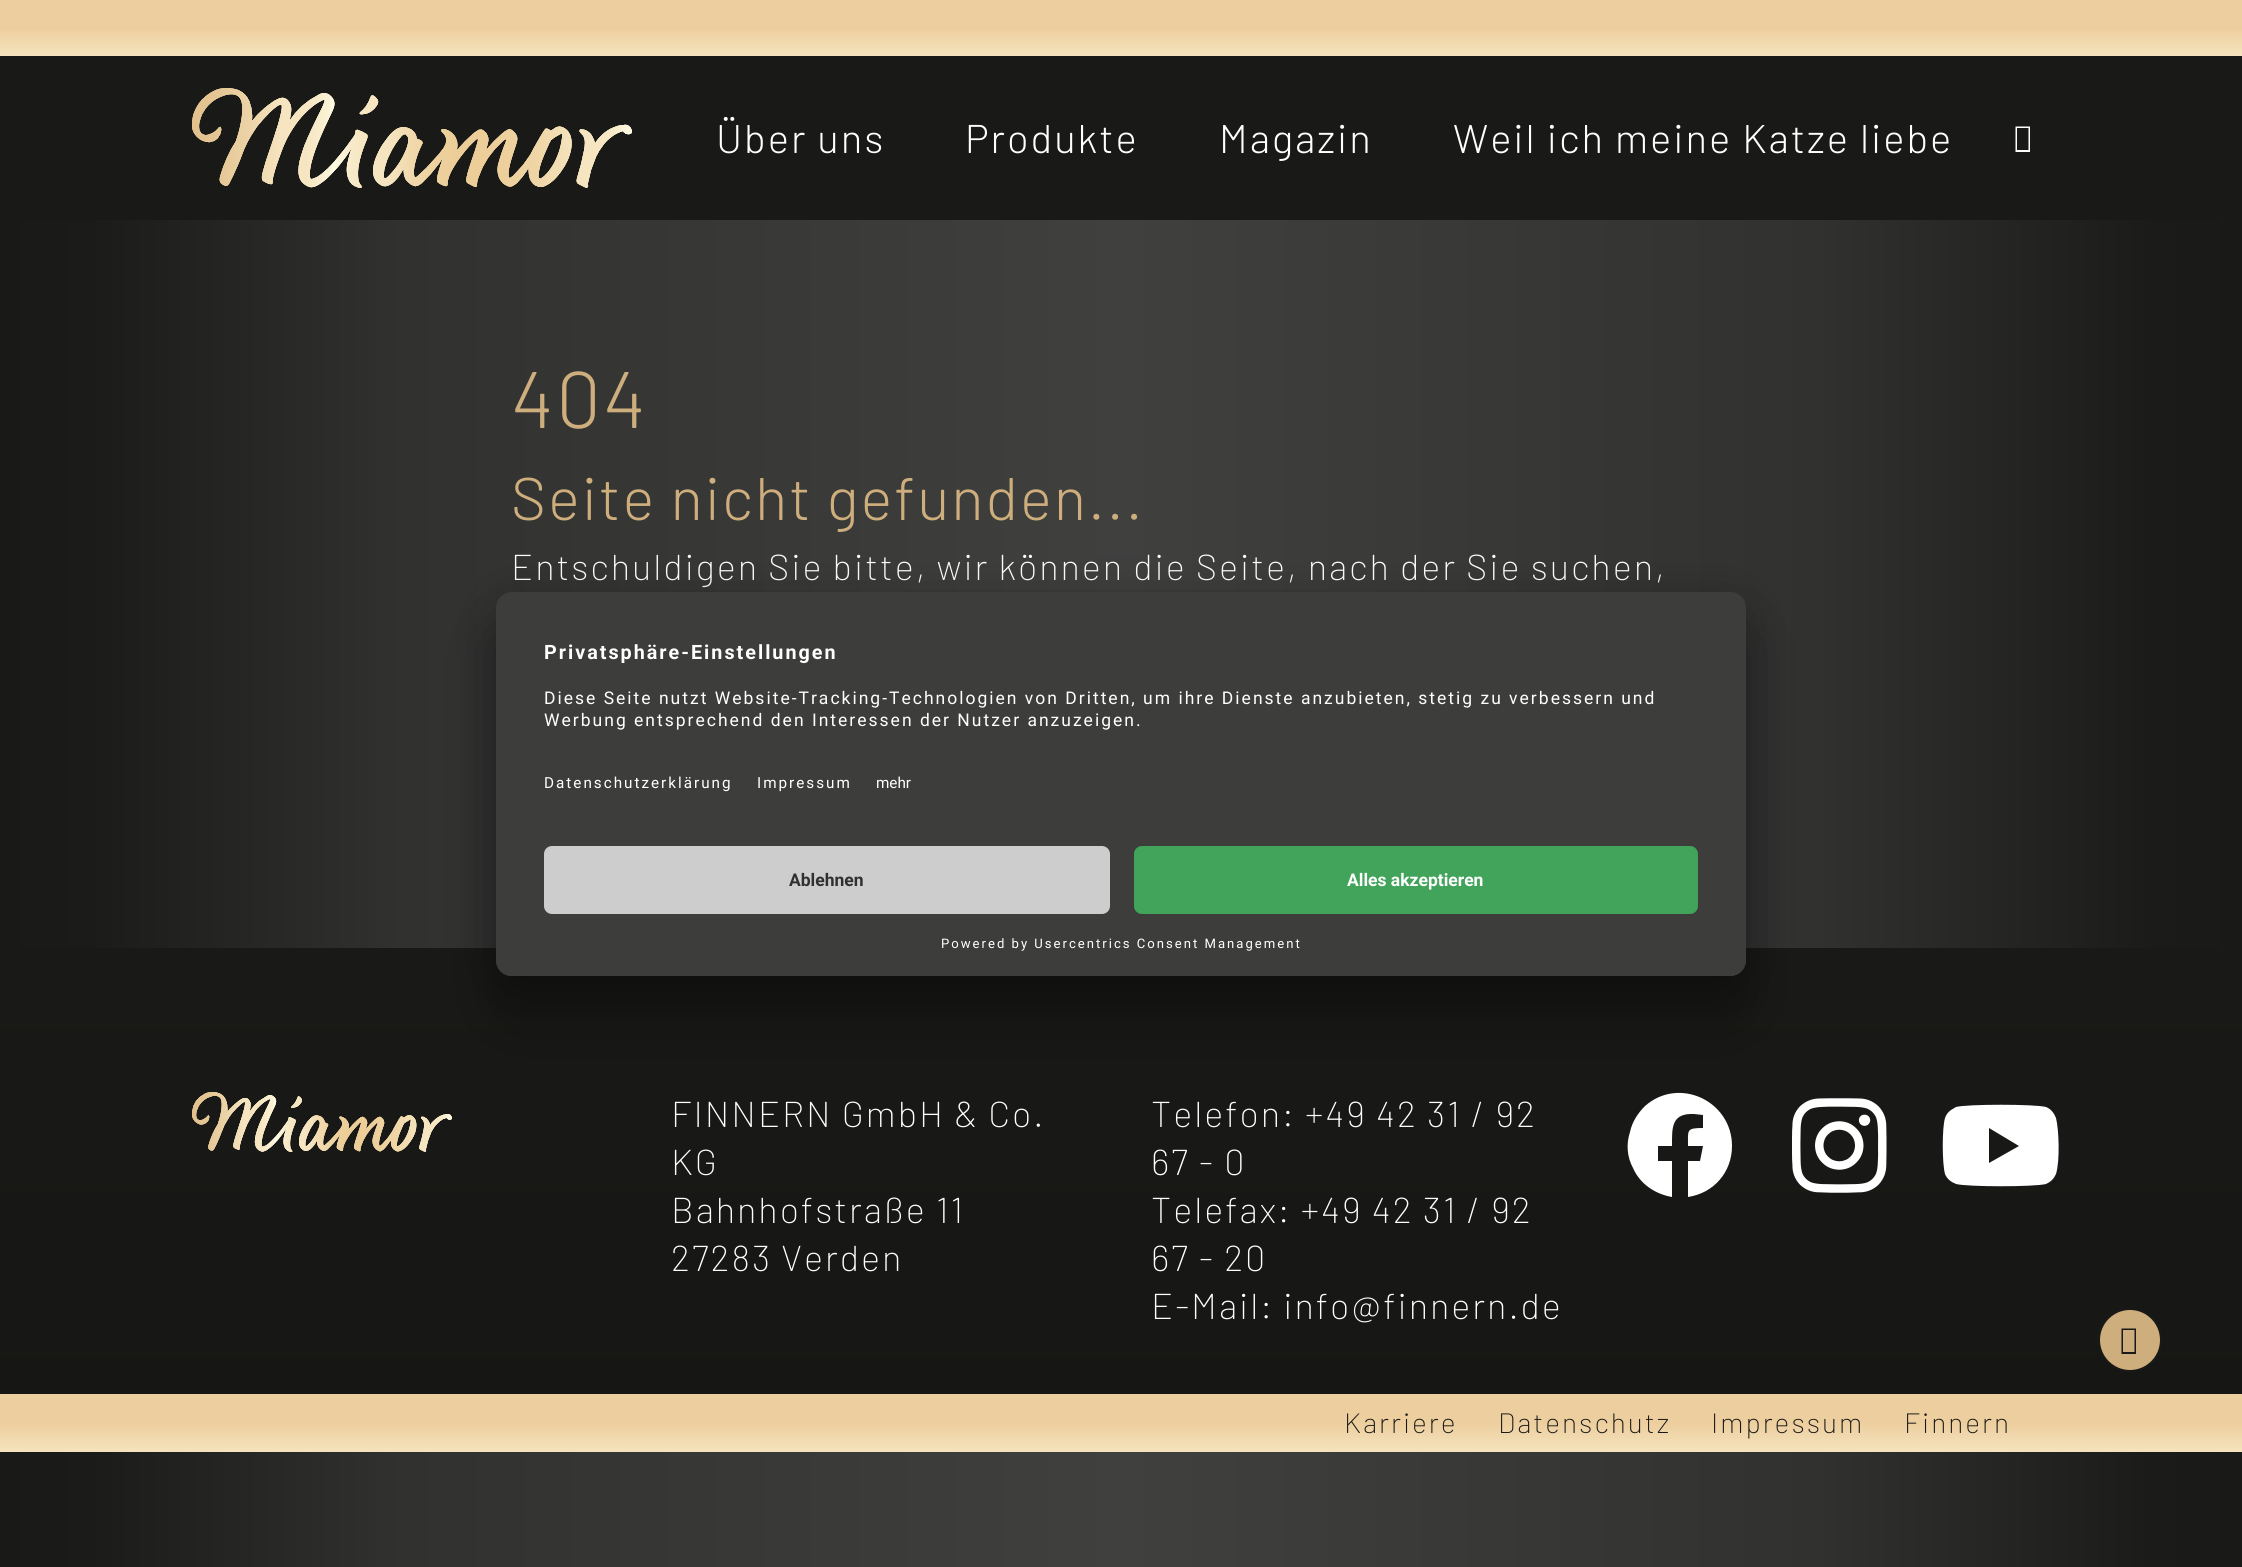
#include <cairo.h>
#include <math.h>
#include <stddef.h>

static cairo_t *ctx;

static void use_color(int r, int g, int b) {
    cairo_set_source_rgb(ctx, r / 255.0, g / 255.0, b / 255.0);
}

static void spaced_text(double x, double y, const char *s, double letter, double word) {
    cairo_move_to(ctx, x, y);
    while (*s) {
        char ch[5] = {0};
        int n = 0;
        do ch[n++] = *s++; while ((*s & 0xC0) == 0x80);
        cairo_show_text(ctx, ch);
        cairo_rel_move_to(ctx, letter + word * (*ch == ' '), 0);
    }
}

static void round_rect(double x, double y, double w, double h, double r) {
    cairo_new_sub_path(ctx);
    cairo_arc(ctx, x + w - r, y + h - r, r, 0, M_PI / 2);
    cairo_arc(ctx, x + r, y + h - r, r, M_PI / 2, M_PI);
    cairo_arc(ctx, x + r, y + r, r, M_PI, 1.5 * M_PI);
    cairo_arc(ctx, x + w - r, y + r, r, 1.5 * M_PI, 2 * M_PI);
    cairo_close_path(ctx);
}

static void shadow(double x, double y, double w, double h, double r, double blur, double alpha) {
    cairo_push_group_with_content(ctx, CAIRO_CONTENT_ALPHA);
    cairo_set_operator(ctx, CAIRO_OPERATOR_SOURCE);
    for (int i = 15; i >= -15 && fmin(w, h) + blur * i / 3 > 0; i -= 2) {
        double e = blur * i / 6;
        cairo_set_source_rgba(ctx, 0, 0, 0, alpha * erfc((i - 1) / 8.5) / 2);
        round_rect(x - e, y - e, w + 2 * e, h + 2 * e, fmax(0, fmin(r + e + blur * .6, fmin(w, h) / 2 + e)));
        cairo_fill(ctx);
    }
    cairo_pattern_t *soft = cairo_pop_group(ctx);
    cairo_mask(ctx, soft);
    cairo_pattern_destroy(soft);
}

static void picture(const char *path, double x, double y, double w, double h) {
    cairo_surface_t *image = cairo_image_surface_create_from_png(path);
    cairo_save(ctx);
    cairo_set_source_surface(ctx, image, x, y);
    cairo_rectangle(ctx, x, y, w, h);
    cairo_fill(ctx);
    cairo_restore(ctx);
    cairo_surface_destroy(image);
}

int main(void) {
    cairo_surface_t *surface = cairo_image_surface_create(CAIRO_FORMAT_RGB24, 2242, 1567);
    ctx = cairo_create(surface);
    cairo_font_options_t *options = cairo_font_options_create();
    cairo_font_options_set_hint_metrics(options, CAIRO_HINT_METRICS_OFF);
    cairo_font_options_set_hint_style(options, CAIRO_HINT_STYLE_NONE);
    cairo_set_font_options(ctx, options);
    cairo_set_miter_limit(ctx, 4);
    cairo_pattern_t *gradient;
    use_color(255, 255, 255);
    cairo_paint(ctx);
    gradient = cairo_pattern_create_linear(0, 784, 2242, 784);
    cairo_pattern_add_color_stop_rgba(gradient, 0, 0.098, 0.098, 0.09, 1);
    cairo_pattern_add_color_stop_rgba(gradient, 0.04, 0.106, 0.106, 0.098, 1);
    cairo_pattern_add_color_stop_rgba(gradient, 0.18, 0.192, 0.192, 0.188, 1);
    cairo_pattern_add_color_stop_rgba(gradient, 0.5, 0.251, 0.251, 0.247, 1);
    cairo_pattern_add_color_stop_rgba(gradient, 0.81, 0.192, 0.192, 0.188, 1);
    cairo_pattern_add_color_stop_rgba(gradient, 0.96, 0.106, 0.106, 0.098, 1);
    cairo_pattern_add_color_stop_rgba(gradient, 1, 0.098, 0.098, 0.09, 1);
    cairo_set_source(ctx, gradient);
    cairo_pattern_destroy(gradient);
    cairo_rectangle(ctx, 0, 220, 2242, 1347);
    cairo_fill(ctx);
    use_color(25, 25, 23);
    cairo_rectangle(ctx, 0, 56, 2242, 164);
    cairo_fill(ctx);
    gradient = cairo_pattern_create_linear(1121, 0, 1121, 84);
    cairo_pattern_add_color_stop_rgba(gradient, 0.33, 0.929, 0.808, 0.62, 1);
    cairo_pattern_add_color_stop_rgba(gradient, 1, 0.992, 0.976, 0.871, 1);
    cairo_set_source(ctx, gradient);
    cairo_pattern_destroy(gradient);
    cairo_rectangle(ctx, 0, 0, 2242, 56);
    cairo_fill(ctx);
    picture("img1.png", 192, 88, 440, 100);
    cairo_select_font_face(ctx, "Barlow Light", CAIRO_FONT_SLANT_NORMAL, CAIRO_FONT_WEIGHT_NORMAL);
    cairo_set_font_size(ctx, 40);
    use_color(255, 255, 255);
    spaced_text(716, 153, "Über uns", 2, 0);
    spaced_text(965, 153, "Produkte", 2, 0);
    spaced_text(1219, 153, "Magazin", 2, 0);
    spaced_text(1453, 153, "Weil ich meine Katze liebe", 2, 0);
    cairo_new_path(ctx);
    cairo_move_to(ctx, 2015.5, 152);
    cairo_line_to(ctx, 2015.5, 126.5);
    cairo_line_to(ctx, 2030, 126.5);
    cairo_line_to(ctx, 2030, 152);
    cairo_close_path(ctx);
    cairo_move_to(ctx, 2017, 150);
    cairo_line_to(ctx, 2028.5, 150);
    cairo_line_to(ctx, 2028.5, 128);
    cairo_line_to(ctx, 2017, 128);
    cairo_close_path(ctx);
    cairo_fill(ctx);
    cairo_set_font_size(ctx, 80);
    use_color(205, 174, 124);
    spaced_text(511, 428, "404", 2, 0);
    cairo_set_font_size(ctx, 60);
    spaced_text(511, 520, "Seite nicht gefunden...", 2, 0);
    cairo_select_font_face(ctx, "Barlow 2 Light", CAIRO_FONT_SLANT_NORMAL, CAIRO_FONT_WEIGHT_NORMAL);
    cairo_set_font_size(ctx, 36);
    use_color(255, 255, 255);
    spaced_text(511, 580, "Entschuldigen Sie bitte, wir können die Seite, nach der Sie suchen,", 2, 0);
    gradient = cairo_pattern_create_linear(1121, 948, 1121, 1452);
    cairo_pattern_add_color_stop_rgba(gradient, 0, 0.098, 0.098, 0.09, 1);
    cairo_pattern_add_color_stop_rgba(gradient, 1, 0.086, 0.086, 0.078, 1);
    cairo_set_source(ctx, gradient);
    cairo_pattern_destroy(gradient);
    cairo_rectangle(ctx, 0, 948, 2242, 446);
    cairo_fill(ctx);
    picture("img2.png", 192, 1092, 260, 60);
    use_color(255, 255, 255);
    spaced_text(671, 1127, "FINNERN GmbH & Co.", 2, 0);
    spaced_text(671, 1175, "KG", 2, 0);
    spaced_text(671, 1223, "Bahnhofstraße 11", 2, 0);
    spaced_text(671, 1271, "27283 Verden", 2, 0);
    spaced_text(1151, 1127, "Telefon: +49 42 31 / 92", 2, 0);
    spaced_text(1151, 1175, "67 - 0", 2, 0);
    spaced_text(1151, 1223, "Telefax: +49 42 31 / 92", 2, 0);
    spaced_text(1151, 1271, "67 - 20", 2, 0);
    spaced_text(1151, 1319, "E-Mail: info@finnern.de", 2, 0);
    cairo_new_path(ctx);
    cairo_move_to(ctx, 1732, 1146);
    cairo_curve_to(ctx, 1732, 1101, 1679, 1076, 1645, 1106);
    cairo_curve_to(ctx, 1638, 1113, 1632, 1122, 1630, 1132);
    cairo_curve_to(ctx, 1626, 1144, 1627, 1157, 1633, 1168);
    cairo_curve_to(ctx, 1640, 1184, 1655, 1194, 1672, 1197);
    cairo_line_to(ctx, 1672, 1161);
    cairo_line_to(ctx, 1658, 1161);
    cairo_line_to(ctx, 1658, 1146);
    cairo_line_to(ctx, 1672, 1146);
    cairo_curve_to(ctx, 1672, 1128, 1671, 1113, 1694, 1114);
    cairo_line_to(ctx, 1703, 1115);
    cairo_line_to(ctx, 1703, 1128);
    cairo_curve_to(ctx, 1686, 1128, 1688, 1130, 1688, 1146);
    cairo_line_to(ctx, 1703, 1146);
    cairo_line_to(ctx, 1700, 1161);
    cairo_line_to(ctx, 1688, 1161);
    cairo_line_to(ctx, 1688, 1197);
    cairo_curve_to(ctx, 1714, 1193, 1732, 1172, 1732, 1146);
    cairo_close_path(ctx);
    cairo_fill(ctx);
    picture("img3.png", 1792, 1098, 95, 95);
    cairo_new_path(ctx);
    cairo_move_to(ctx, 2056, 1118);
    cairo_curve_to(ctx, 2054, 1113, 2051, 1109, 2046, 1107);
    cairo_curve_to(ctx, 2035, 1104, 1967, 1104, 1956, 1107);
    cairo_line_to(ctx, 1951, 1110);
    cairo_curve_to(ctx, 1948, 1112, 1946, 1115, 1945, 1118);
    cairo_curve_to(ctx, 1942, 1128, 1942, 1163, 1945, 1174);
    cairo_curve_to(ctx, 1947, 1179, 1951, 1182, 1956, 1184);
    cairo_curve_to(ctx, 1968, 1187, 2034, 1187, 2046, 1184);
    cairo_curve_to(ctx, 2048, 1183, 2050, 1182, 2052, 1180);
    cairo_curve_to(ctx, 2054, 1178, 2055, 1176, 2056, 1174);
    cairo_curve_to(ctx, 2060, 1161, 2059, 1130, 2056, 1118);
    cairo_close_path(ctx);
    cairo_move_to(ctx, 1989, 1163);
    cairo_line_to(ctx, 1989, 1128);
    cairo_line_to(ctx, 2019, 1146);
    cairo_close_path(ctx);
    cairo_fill(ctx);
    cairo_arc(ctx, 2130, 1340, 31, 0, 2 * M_PI);
    use_color(25, 25, 23);
    cairo_stroke(ctx);
    use_color(205, 174, 124);
    cairo_arc(ctx, 2130, 1340, 30, 0, 2 * M_PI);
    cairo_fill(ctx);
    use_color(25, 25, 23);
    cairo_new_path(ctx);
    cairo_move_to(ctx, 2121.5, 1354);
    cairo_line_to(ctx, 2121.5, 1328.5);
    cairo_line_to(ctx, 2136, 1328.5);
    cairo_line_to(ctx, 2136, 1354);
    cairo_close_path(ctx);
    cairo_move_to(ctx, 2123, 1352);
    cairo_line_to(ctx, 2134.5, 1352);
    cairo_line_to(ctx, 2134.5, 1330);
    cairo_line_to(ctx, 2123, 1330);
    cairo_close_path(ctx);
    cairo_fill(ctx);
    gradient = cairo_pattern_create_linear(1121, 1394, 1121, 1481);
    cairo_pattern_add_color_stop_rgba(gradient, 0.33, 0.929, 0.808, 0.62, 1);
    cairo_pattern_add_color_stop_rgba(gradient, 1, 0.992, 0.976, 0.871, 1);
    cairo_set_source(ctx, gradient);
    cairo_pattern_destroy(gradient);
    cairo_rectangle(ctx, 0, 1394, 2242, 58);
    cairo_fill(ctx);
    cairo_set_font_size(ctx, 28);
    use_color(25, 25, 23);
    spaced_text(1344, 1433, "Karriere", 2, 0);
    spaced_text(1498, 1433, "Datenschutz", 2, 0);
    spaced_text(1711, 1433, "Impressum", 2, 0);
    spaced_text(1904, 1433, "Finnern", 2, 0);
    use_color(0, 0, 0);
    shadow(496, 632, 1250, 384, 16, 28, 0.3);
    shadow(496, 602, 1250, 384, 16, 26, 0.22);
    use_color(61, 61, 60);
    round_rect(496, 592, 1250, 384, 16);
    cairo_fill(ctx);
    cairo_select_font_face(ctx, "Roboto", CAIRO_FONT_SLANT_NORMAL, CAIRO_FONT_WEIGHT_BOLD);
    cairo_set_font_size(ctx, 19.75);
    use_color(255, 255, 255);
    spaced_text(544, 659, "Privatsphäre-Einstellungen", 2, 0);
    cairo_select_font_face(ctx, "Roboto", CAIRO_FONT_SLANT_NORMAL, CAIRO_FONT_WEIGHT_NORMAL);
    cairo_set_font_size(ctx, 17.5);
    spaced_text(544, 704, "Diese Seite nutzt Website-Tracking-Technologien von Dritten, um ihre Dienste anzubieten, stetig zu verbessern und", 2, 0);
    spaced_text(544, 726, "Werbung entsprechend den Interessen der Nutzer anzuzeigen.", 2, 0);
    cairo_set_font_size(ctx, 15.25);
    spaced_text(544, 788, "Datenschutzerklärung", 2, 0);
    spaced_text(757, 788, "Impressum", 2, 0);
    cairo_move_to(ctx, 876, 788);
    cairo_show_text(ctx, "mehr");
    use_color(61, 61, 60);
    cairo_new_path(ctx);
    cairo_move_to(ctx, 496, 830);
    cairo_line_to(ctx, 1746, 830);
    cairo_line_to(ctx, 1746, 960);
    cairo_curve_to(ctx, 1746, 969, 1739, 976, 1730, 976);
    cairo_line_to(ctx, 512, 976);
    cairo_curve_to(ctx, 503, 976, 496, 969, 496, 960);
    cairo_close_path(ctx);
    cairo_fill(ctx);
    use_color(205, 205, 205);
    round_rect(544, 846, 566, 68, 8);
    cairo_fill(ctx);
    cairo_select_font_face(ctx, "Roboto", CAIRO_FONT_SLANT_NORMAL, CAIRO_FONT_WEIGHT_BOLD);
    cairo_set_font_size(ctx, 17.5);
    use_color(48, 48, 48);
    cairo_move_to(ctx, 789, 886);
    cairo_show_text(ctx, "Ablehnen");
    use_color(66, 163, 91);
    round_rect(1134, 846, 564, 68, 8);
    cairo_fill(ctx);
    use_color(255, 255, 255);
    cairo_move_to(ctx, 1347, 886);
    cairo_show_text(ctx, "Alles akzeptieren");
    cairo_select_font_face(ctx, "Roboto", CAIRO_FONT_SLANT_NORMAL, CAIRO_FONT_WEIGHT_NORMAL);
    cairo_set_font_size(ctx, 13.1);
    spaced_text(941, 948, "Powered by Usercentrics Consent Management", 2, 0);
    cairo_surface_write_to_png(surface, "result.png");
    cairo_font_options_destroy(options);
    cairo_destroy(ctx);
    cairo_surface_destroy(surface);
    return 0;
}
